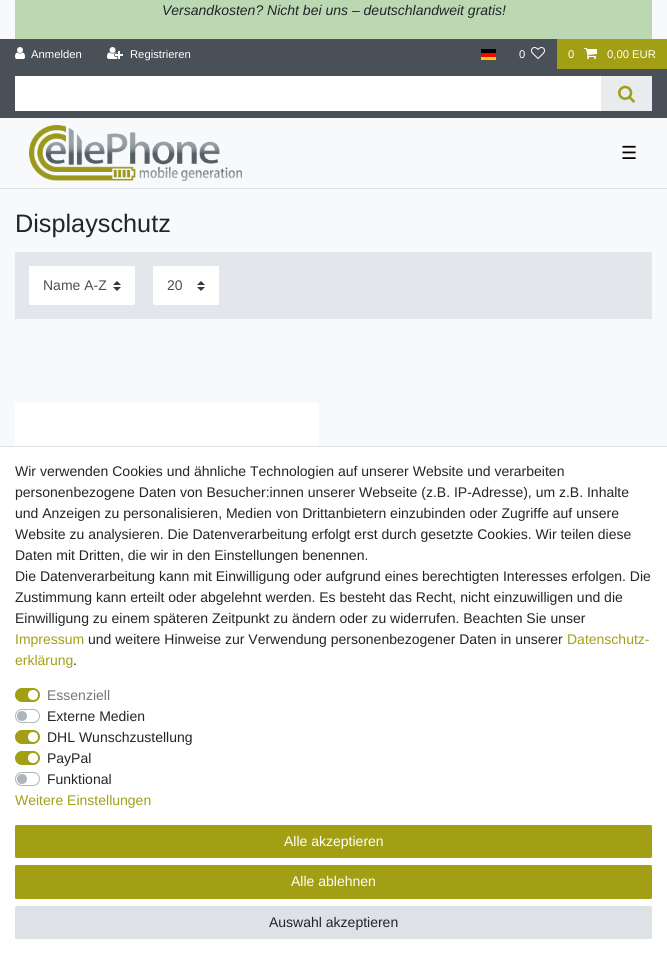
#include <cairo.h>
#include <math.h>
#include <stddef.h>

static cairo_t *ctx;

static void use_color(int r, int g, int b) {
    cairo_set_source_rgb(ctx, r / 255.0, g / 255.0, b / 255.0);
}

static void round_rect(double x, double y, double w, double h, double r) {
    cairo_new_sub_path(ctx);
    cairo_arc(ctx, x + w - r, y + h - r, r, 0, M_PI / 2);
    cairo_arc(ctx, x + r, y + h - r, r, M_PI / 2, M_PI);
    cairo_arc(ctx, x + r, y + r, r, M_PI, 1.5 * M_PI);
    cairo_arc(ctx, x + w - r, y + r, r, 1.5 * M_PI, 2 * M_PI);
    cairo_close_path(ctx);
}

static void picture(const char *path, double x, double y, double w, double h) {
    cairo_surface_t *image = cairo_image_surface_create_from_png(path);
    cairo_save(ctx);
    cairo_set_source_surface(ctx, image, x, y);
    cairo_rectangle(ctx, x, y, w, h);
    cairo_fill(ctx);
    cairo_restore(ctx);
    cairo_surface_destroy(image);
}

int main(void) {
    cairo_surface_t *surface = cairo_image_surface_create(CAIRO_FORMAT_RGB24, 667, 960);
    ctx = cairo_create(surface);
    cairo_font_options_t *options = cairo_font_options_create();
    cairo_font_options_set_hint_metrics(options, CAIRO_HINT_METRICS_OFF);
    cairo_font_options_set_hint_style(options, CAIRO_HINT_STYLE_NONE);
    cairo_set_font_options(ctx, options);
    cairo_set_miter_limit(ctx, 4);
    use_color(248, 249, 250);
    cairo_paint(ctx);
    use_color(187, 216, 179);
    cairo_rectangle(ctx, 15, 0, 637, 39);
    cairo_fill(ctx);
    cairo_select_font_face(ctx, "Liberation Sans", CAIRO_FONT_SLANT_ITALIC, CAIRO_FONT_WEIGHT_NORMAL);
    cairo_set_font_size(ctx, 14);
    use_color(33, 37, 41);
    cairo_move_to(ctx, 162, 15);
    cairo_show_text(ctx, "Versandkosten? Nicht bei uns – deutschlandweit gratis!");
    use_color(73, 80, 87);
    cairo_rectangle(ctx, 0, 39, 667, 79);
    cairo_fill(ctx);
    picture("img1.png", 15, 47, 10, 12);
    cairo_select_font_face(ctx, "Liberation Sans", CAIRO_FONT_SLANT_NORMAL, CAIRO_FONT_WEIGHT_NORMAL);
    cairo_set_font_size(ctx, 11.25);
    use_color(255, 255, 255);
    cairo_move_to(ctx, 31, 58);
    cairo_show_text(ctx, "Anmelden");
    picture("img2.png", 107, 47, 16, 12);
    cairo_move_to(ctx, 130, 58);
    cairo_show_text(ctx, "Registrieren");
    use_color(255, 204, 0);
    cairo_rectangle(ctx, 481, 57, 15, 3);
    cairo_fill(ctx);
    use_color(0, 0, 0);
    cairo_rectangle(ctx, 481, 49, 15, 4);
    cairo_fill(ctx);
    use_color(255, 0, 0);
    cairo_rectangle(ctx, 481, 53, 15, 4);
    cairo_fill(ctx);
    use_color(255, 255, 255);
    cairo_move_to(ctx, 519, 58);
    cairo_show_text(ctx, "0");
    picture("img3.png", 531, 47, 14, 12);
    use_color(162, 159, 21);
    cairo_rectangle(ctx, 557, 39, 110, 30);
    cairo_fill(ctx);
    use_color(255, 255, 255);
    cairo_move_to(ctx, 568, 58);
    cairo_show_text(ctx, "0");
    picture("img4.png", 584, 48, 13, 11);
    cairo_move_to(ctx, 607, 58);
    cairo_show_text(ctx, "0,00 EUR");
    cairo_rectangle(ctx, 15, 76, 586, 35);
    cairo_fill(ctx);
    use_color(233, 236, 239);
    cairo_rectangle(ctx, 601, 76, 51, 35);
    cairo_fill(ctx);
    picture("img5.png", 618, 85, 17, 18);
    use_color(222, 226, 230);
    cairo_rectangle(ctx, 0, 188, 667, 1);
    cairo_fill(ctx);
    picture("img6.png", 29, 125, 213, 56);
    cairo_select_font_face(ctx, "DejaVu Sans", CAIRO_FONT_SLANT_NORMAL, CAIRO_FONT_WEIGHT_NORMAL);
    cairo_set_font_size(ctx, 18);
    use_color(0, 0, 0);
    cairo_move_to(ctx, 621, 159);
    cairo_show_text(ctx, "☰");
    cairo_select_font_face(ctx, "Liberation Sans", CAIRO_FONT_SLANT_NORMAL, CAIRO_FONT_WEIGHT_NORMAL);
    cairo_set_font_size(ctx, 25.25);
    use_color(33, 37, 41);
    cairo_move_to(ctx, 15, 232);
    cairo_show_text(ctx, "Displayschutz");
    use_color(227, 231, 235);
    cairo_rectangle(ctx, 15, 252, 637, 67);
    cairo_fill(ctx);
    use_color(255, 255, 255);
    round_rect(29, 266, 106, 39, 1.5);
    cairo_fill(ctx);
    picture("img7.png", 113, 281, 8, 10);
    cairo_set_font_size(ctx, 14);
    use_color(73, 80, 87);
    cairo_move_to(ctx, 43, 290);
    cairo_show_text(ctx, "Name A-Z");
    use_color(255, 255, 255);
    round_rect(153, 266, 66, 39, 1.5);
    cairo_fill(ctx);
    picture("img7.png", 197, 281, 8, 10);
    use_color(73, 80, 87);
    cairo_move_to(ctx, 167, 290);
    cairo_show_text(ctx, "20");
    use_color(255, 255, 255);
    cairo_rectangle(ctx, 15, 403, 304, 43);
    cairo_fill(ctx);
    cairo_rectangle(ctx, 0, 447, 667, 513);
    cairo_fill(ctx);
    use_color(222, 226, 230);
    cairo_rectangle(ctx, 0, 446, 667, 1);
    cairo_fill(ctx);
    use_color(33, 37, 41);
    cairo_move_to(ctx, 15, 476);
    cairo_show_text(ctx, "Wir verwenden Cookies und ähnliche Technologien auf unserer Website und verarbeiten");
    cairo_move_to(ctx, 15, 497);
    cairo_show_text(ctx, "personenbezogene Daten von Besucher:innen unserer Webseite (z.B. IP-Adresse), um z.B. Inhalte");
    cairo_move_to(ctx, 15, 518);
    cairo_show_text(ctx, "und Anzeigen zu personalisieren, Medien von Drittanbietern einzubinden oder Zugriffe auf unsere");
    cairo_move_to(ctx, 15, 539);
    cairo_show_text(ctx, "Website zu analysieren. Die Datenverarbeitung erfolgt erst durch gesetzte Cookies. Wir teilen diese");
    cairo_move_to(ctx, 15, 560);
    cairo_show_text(ctx, "Daten mit Dritten, die wir in den Einstellungen benennen.");
    cairo_move_to(ctx, 15, 581);
    cairo_show_text(ctx, "Die Datenverarbeitung kann mit Einwilligung oder aufgrund eines berechtigten Interesses erfolgen. Die");
    cairo_move_to(ctx, 15, 602);
    cairo_show_text(ctx, "Zustimmung kann erteilt oder abgelehnt werden. Es besteht das Recht, nicht einzuwilligen und die");
    cairo_move_to(ctx, 15, 623);
    cairo_show_text(ctx, "Einwilligung zu einem späteren Zeitpunkt zu ändern oder zu widerrufen. Beachten Sie unser");
    use_color(162, 159, 21);
    cairo_move_to(ctx, 15, 644);
    cairo_show_text(ctx, "Impressum");
    use_color(33, 37, 41);
    cairo_move_to(ctx, 88, 644);
    cairo_show_text(ctx, "und weitere Hinweise zur Verwendung personenbezogener Daten in unserer");
    use_color(162, 159, 21);
    cairo_move_to(ctx, 567, 644);
    cairo_show_text(ctx, "Datenschutz-");
    cairo_move_to(ctx, 15, 665);
    cairo_show_text(ctx, "erklärung");
    use_color(33, 37, 41);
    cairo_move_to(ctx, 73, 665);
    cairo_show_text(ctx, ".");
    use_color(162, 159, 21);
    round_rect(15.5, 688.5, 24, 13, 6.5);
    cairo_fill_preserve(ctx);
    cairo_set_line_width(ctx, 1);
    cairo_stroke(ctx);
    use_color(118, 118, 118);
    cairo_move_to(ctx, 47, 700);
    cairo_show_text(ctx, "Essenziell");
    use_color(255, 255, 255);
    cairo_new_path(ctx);
    cairo_arc(ctx, 33, 695, 5, 0, 2 * M_PI);
    cairo_fill(ctx);
    round_rect(15.5, 709.5, 24, 13, 6.5);
    use_color(173, 181, 189);
    cairo_stroke(ctx);
    use_color(33, 37, 41);
    cairo_move_to(ctx, 47, 721);
    cairo_show_text(ctx, "Externe Medien");
    use_color(173, 181, 189);
    cairo_new_path(ctx);
    cairo_arc(ctx, 22, 716, 5, 0, 2 * M_PI);
    cairo_fill(ctx);
    use_color(162, 159, 21);
    round_rect(15.5, 730.5, 24, 13, 6.5);
    cairo_fill_preserve(ctx);
    cairo_stroke(ctx);
    use_color(33, 37, 41);
    cairo_move_to(ctx, 47, 742);
    cairo_show_text(ctx, "DHL Wunschzustellung");
    use_color(255, 255, 255);
    cairo_new_path(ctx);
    cairo_arc(ctx, 33, 737, 5, 0, 2 * M_PI);
    cairo_fill(ctx);
    use_color(162, 159, 21);
    round_rect(15.5, 751.5, 24, 13, 6.5);
    cairo_fill_preserve(ctx);
    cairo_stroke(ctx);
    use_color(33, 37, 41);
    cairo_move_to(ctx, 47, 763);
    cairo_show_text(ctx, "PayPal");
    use_color(255, 255, 255);
    cairo_new_path(ctx);
    cairo_arc(ctx, 33, 758, 5, 0, 2 * M_PI);
    cairo_fill(ctx);
    round_rect(15.5, 772.5, 24, 13, 6.5);
    use_color(173, 181, 189);
    cairo_stroke(ctx);
    use_color(33, 37, 41);
    cairo_move_to(ctx, 47, 784);
    cairo_show_text(ctx, "Funktional");
    use_color(173, 181, 189);
    cairo_new_path(ctx);
    cairo_arc(ctx, 22, 779, 5, 0, 2 * M_PI);
    cairo_fill(ctx);
    use_color(162, 159, 21);
    cairo_move_to(ctx, 15, 805);
    cairo_show_text(ctx, "Weitere Einstellungen");
    round_rect(15.5, 825.5, 636, 32, 1);
    cairo_fill_preserve(ctx);
    cairo_stroke(ctx);
    use_color(255, 255, 255);
    cairo_move_to(ctx, 284, 846);
    cairo_show_text(ctx, "Alle akzeptieren");
    use_color(162, 159, 21);
    round_rect(15.5, 865.5, 636, 33, 1);
    cairo_fill_preserve(ctx);
    cairo_stroke(ctx);
    use_color(255, 255, 255);
    cairo_move_to(ctx, 291, 886);
    cairo_show_text(ctx, "Alle ablehnen");
    use_color(222, 226, 230);
    round_rect(15.5, 906.5, 636, 32, 1);
    cairo_fill_preserve(ctx);
    cairo_stroke(ctx);
    use_color(33, 37, 41);
    cairo_move_to(ctx, 269, 927);
    cairo_show_text(ctx, "Auswahl akzeptieren");
    cairo_surface_write_to_png(surface, "result.png");
    cairo_font_options_destroy(options);
    cairo_destroy(ctx);
    cairo_surface_destroy(surface);
    return 0;
}
